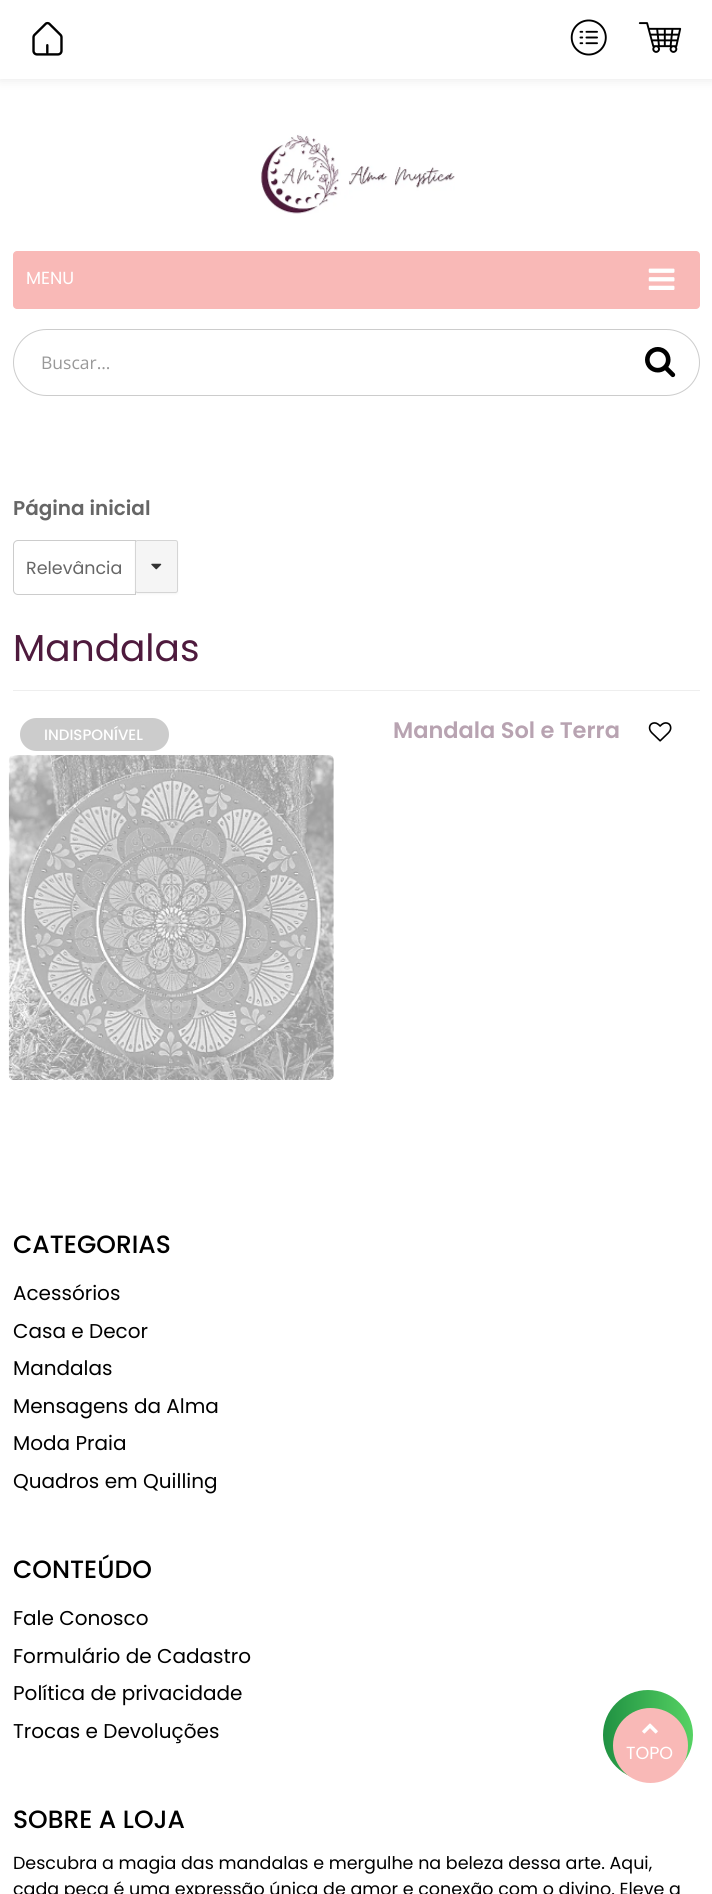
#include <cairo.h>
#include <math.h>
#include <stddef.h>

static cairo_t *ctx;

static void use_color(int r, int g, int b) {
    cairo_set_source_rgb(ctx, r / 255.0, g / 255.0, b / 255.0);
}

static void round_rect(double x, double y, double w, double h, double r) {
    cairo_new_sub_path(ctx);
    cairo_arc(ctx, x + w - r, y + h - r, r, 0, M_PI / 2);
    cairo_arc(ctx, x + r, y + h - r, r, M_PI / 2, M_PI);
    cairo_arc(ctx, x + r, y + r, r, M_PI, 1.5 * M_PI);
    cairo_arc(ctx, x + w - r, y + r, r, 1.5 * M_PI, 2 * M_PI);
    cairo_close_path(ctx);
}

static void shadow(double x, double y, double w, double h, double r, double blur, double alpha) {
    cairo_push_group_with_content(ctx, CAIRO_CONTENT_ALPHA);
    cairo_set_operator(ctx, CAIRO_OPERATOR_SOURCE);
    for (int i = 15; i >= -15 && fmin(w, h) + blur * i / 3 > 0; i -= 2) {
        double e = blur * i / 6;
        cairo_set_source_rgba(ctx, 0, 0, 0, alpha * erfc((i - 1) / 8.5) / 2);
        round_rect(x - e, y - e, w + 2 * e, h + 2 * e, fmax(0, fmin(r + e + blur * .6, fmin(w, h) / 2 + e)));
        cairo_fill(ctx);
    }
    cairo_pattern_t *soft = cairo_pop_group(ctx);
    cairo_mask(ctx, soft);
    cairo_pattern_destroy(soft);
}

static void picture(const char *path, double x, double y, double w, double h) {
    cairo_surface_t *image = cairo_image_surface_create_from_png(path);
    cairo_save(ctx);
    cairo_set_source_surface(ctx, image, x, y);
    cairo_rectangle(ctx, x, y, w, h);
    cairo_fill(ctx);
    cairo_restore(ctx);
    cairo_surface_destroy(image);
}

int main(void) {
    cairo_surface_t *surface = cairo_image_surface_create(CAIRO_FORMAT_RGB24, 712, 1894);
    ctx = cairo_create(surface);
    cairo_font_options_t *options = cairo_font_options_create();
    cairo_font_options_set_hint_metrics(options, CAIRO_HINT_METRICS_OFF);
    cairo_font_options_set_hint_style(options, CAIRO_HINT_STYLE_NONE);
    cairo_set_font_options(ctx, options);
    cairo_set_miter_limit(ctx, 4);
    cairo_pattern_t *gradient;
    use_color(255, 255, 255);
    cairo_paint(ctx);
    use_color(0, 0, 0);
    shadow(0, 0, 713, 79, 0, 6, 0.1);
    use_color(255, 255, 255);
    cairo_rectangle(ctx, 0, 0, 712, 79);
    cairo_fill(ctx);
    picture("img1.png", 32, 21, 31, 35);
    picture("img2.png", 570, 19, 37, 37);
    picture("img3.png", 638, 22, 44, 31);
    picture("img4.png", 260, 134, 195, 80);
    use_color(249, 185, 183);
    round_rect(13, 251, 687, 58, 4);
    cairo_fill(ctx);
    cairo_select_font_face(ctx, "Poppins", CAIRO_FONT_SLANT_NORMAL, CAIRO_FONT_WEIGHT_NORMAL);
    cairo_set_font_size(ctx, 17.5);
    use_color(255, 255, 255);
    cairo_move_to(ctx, 26, 284);
    cairo_show_text(ctx, "MENU");
    picture("img5.png", 648, 268, 27, 22);
    round_rect(13.5, 329.5, 686, 66, 33);
    use_color(204, 204, 204);
    cairo_set_line_width(ctx, 1);
    cairo_stroke(ctx);
    cairo_select_font_face(ctx, "Open Sans", CAIRO_FONT_SLANT_NORMAL, CAIRO_FONT_WEIGHT_NORMAL);
    use_color(153, 153, 153);
    cairo_move_to(ctx, 41, 369);
    cairo_show_text(ctx, "Buscar...");
    picture("img6.png", 645, 347, 31, 31);
    cairo_select_font_face(ctx, "Poppins SemiBold", CAIRO_FONT_SLANT_NORMAL, CAIRO_FONT_WEIGHT_NORMAL);
    cairo_set_font_size(ctx, 20);
    use_color(102, 102, 102);
    cairo_move_to(ctx, 13, 515);
    cairo_show_text(ctx, "Página inicial");
    cairo_new_path(ctx);
    cairo_move_to(ctx, 18, 540.5);
    cairo_line_to(ctx, 135.5, 540.5);
    cairo_line_to(ctx, 135.5, 594.5);
    cairo_line_to(ctx, 18, 594.5);
    cairo_curve_to(ctx, 15.5, 594.5, 13.5, 592.5, 13.5, 590);
    cairo_line_to(ctx, 13.5, 545);
    cairo_curve_to(ctx, 13.5, 542.5, 15.5, 540.5, 18, 540.5);
    cairo_close_path(ctx);
    use_color(204, 204, 204);
    cairo_stroke(ctx);
    cairo_select_font_face(ctx, "Poppins", CAIRO_FONT_SLANT_NORMAL, CAIRO_FONT_WEIGHT_NORMAL);
    cairo_set_font_size(ctx, 17.5);
    use_color(102, 102, 102);
    cairo_move_to(ctx, 26, 574);
    cairo_show_text(ctx, "Relevância");
    use_color(0, 0, 0);
    shadow(135, 541, 43, 53, 2.5, 1, 0.05);
    use_color(245, 245, 245);
    round_rect(135, 540, 43, 53, 2.5);
    cairo_fill(ctx);
    round_rect(135.5, 540.5, 42, 52, 2);
    cairo_set_source_rgba(ctx, 0, 0, 0, 0.13);
    cairo_stroke(ctx);
    picture("img7.png", 151, 563, 11, 7);
    use_color(238, 238, 238);
    cairo_rectangle(ctx, 13, 690, 687, 1);
    cairo_fill(ctx);
    cairo_set_font_size(ctx, 37.5);
    use_color(78, 26, 61);
    cairo_move_to(ctx, 13, 661);
    cairo_show_text(ctx, "Mandalas");
    use_color(204, 204, 204);
    round_rect(20, 718, 149, 33, 16.5);
    cairo_fill(ctx);
    cairo_select_font_face(ctx, "Poppins Medium", CAIRO_FONT_SLANT_NORMAL, CAIRO_FONT_WEIGHT_NORMAL);
    cairo_set_font_size(ctx, 15);
    use_color(255, 255, 255);
    cairo_move_to(ctx, 44, 740);
    cairo_show_text(ctx, "INDISPONÍVEL");
    cairo_select_font_face(ctx, "Poppins SemiBold", CAIRO_FONT_SLANT_NORMAL, CAIRO_FONT_WEIGHT_NORMAL);
    cairo_set_font_size(ctx, 22.5);
    use_color(184, 163, 177);
    cairo_move_to(ctx, 393, 738);
    cairo_show_text(ctx, "Mandala Sol e Terra");
    picture("img8.png", 648, 722, 24, 20);
    picture("img9.png", 8, 755, 326, 325);
    cairo_select_font_face(ctx, "Poppins Medium", CAIRO_FONT_SLANT_NORMAL, CAIRO_FONT_WEIGHT_NORMAL);
    cairo_set_font_size(ctx, 25);
    use_color(0, 0, 0);
    cairo_move_to(ctx, 13, 1253);
    cairo_show_text(ctx, "CATEGORIAS");
    cairo_select_font_face(ctx, "Poppins", CAIRO_FONT_SLANT_NORMAL, CAIRO_FONT_WEIGHT_NORMAL);
    cairo_set_font_size(ctx, 20);
    cairo_move_to(ctx, 13, 1300);
    cairo_show_text(ctx, "Acessórios");
    cairo_move_to(ctx, 13, 1338);
    cairo_show_text(ctx, "Casa e Decor");
    cairo_move_to(ctx, 13, 1375);
    cairo_show_text(ctx, "Mandalas");
    cairo_move_to(ctx, 13, 1413);
    cairo_show_text(ctx, "Mensagens da Alma");
    cairo_move_to(ctx, 13, 1450);
    cairo_show_text(ctx, "Moda Praia");
    cairo_move_to(ctx, 13, 1488);
    cairo_show_text(ctx, "Quadros em Quilling");
    cairo_select_font_face(ctx, "Poppins Medium", CAIRO_FONT_SLANT_NORMAL, CAIRO_FONT_WEIGHT_NORMAL);
    cairo_set_font_size(ctx, 25);
    cairo_move_to(ctx, 13, 1578);
    cairo_show_text(ctx, "CONTEÚDO");
    cairo_select_font_face(ctx, "Poppins", CAIRO_FONT_SLANT_NORMAL, CAIRO_FONT_WEIGHT_NORMAL);
    cairo_set_font_size(ctx, 20);
    cairo_move_to(ctx, 13, 1625);
    cairo_show_text(ctx, "Fale Conosco");
    cairo_move_to(ctx, 13, 1663);
    cairo_show_text(ctx, "Formulário de Cadastro");
    cairo_move_to(ctx, 13, 1700);
    cairo_show_text(ctx, "Política de privacidade");
    cairo_move_to(ctx, 13, 1738);
    cairo_show_text(ctx, "Trocas e Devoluções");
    cairo_select_font_face(ctx, "Poppins Medium", CAIRO_FONT_SLANT_NORMAL, CAIRO_FONT_WEIGHT_NORMAL);
    cairo_set_font_size(ctx, 25);
    cairo_move_to(ctx, 13, 1828);
    cairo_show_text(ctx, "SOBRE A LOJA");
    cairo_select_font_face(ctx, "Poppins", CAIRO_FONT_SLANT_NORMAL, CAIRO_FONT_WEIGHT_NORMAL);
    cairo_set_font_size(ctx, 17.5);
    cairo_move_to(ctx, 13, 1869);
    cairo_show_text(ctx, "Descubra a magia das mandalas e mergulhe na beleza dessa arte. Aqui,");
    cairo_move_to(ctx, 13, 1895);
    cairo_show_text(ctx, "cada peça é uma expressão única de amor e conexão com o divino. Eleve a");
    gradient = cairo_pattern_create_linear(603, 1735, 693, 1735);
    cairo_pattern_add_color_stop_rgba(gradient, 0, 0.125, 0.569, 0.259, 1);
    cairo_pattern_add_color_stop_rgba(gradient, 1, 0.337, 0.824, 0.388, 1);
    cairo_set_source(ctx, gradient);
    cairo_pattern_destroy(gradient);
    cairo_new_path(ctx);
    cairo_arc(ctx, 648, 1735, 45, 0, 2 * M_PI);
    cairo_fill(ctx);
    picture("img11.png", 635, 1708, 14, 4);
    use_color(249, 185, 183);
    cairo_arc(ctx, 650.5, 1745.5, 37.5, 0, 2 * M_PI);
    cairo_fill(ctx);
    picture("img10.png", 642, 1723, 16, 11);
    use_color(255, 255, 255);
    cairo_move_to(ctx, 626, 1759);
    cairo_show_text(ctx, "TOPO");
    cairo_surface_write_to_png(surface, "result.png");
    cairo_font_options_destroy(options);
    cairo_destroy(ctx);
    cairo_surface_destroy(surface);
    return 0;
}
